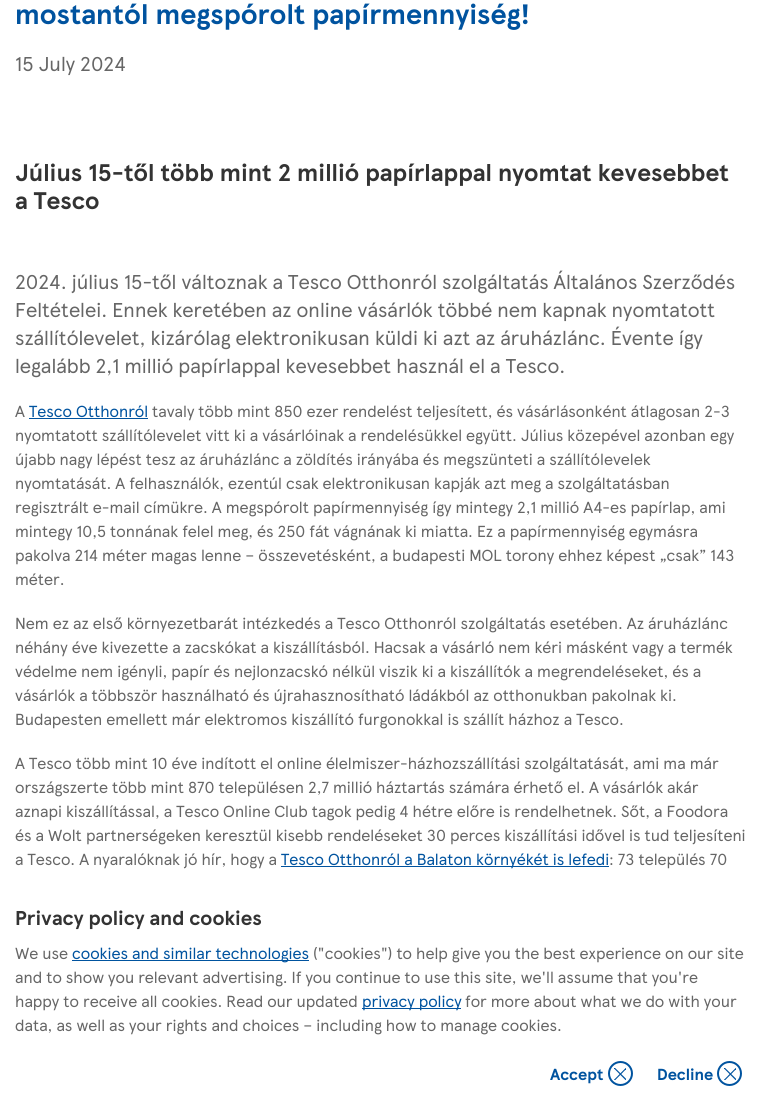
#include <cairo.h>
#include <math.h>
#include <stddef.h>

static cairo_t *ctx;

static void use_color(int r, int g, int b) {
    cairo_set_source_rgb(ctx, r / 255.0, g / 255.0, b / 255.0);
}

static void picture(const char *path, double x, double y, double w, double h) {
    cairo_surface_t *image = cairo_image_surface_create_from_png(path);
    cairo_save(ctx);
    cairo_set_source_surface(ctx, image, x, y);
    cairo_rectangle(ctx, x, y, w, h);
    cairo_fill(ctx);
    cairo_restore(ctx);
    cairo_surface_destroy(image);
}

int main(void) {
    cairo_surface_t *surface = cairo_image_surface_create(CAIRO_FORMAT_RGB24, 761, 1100);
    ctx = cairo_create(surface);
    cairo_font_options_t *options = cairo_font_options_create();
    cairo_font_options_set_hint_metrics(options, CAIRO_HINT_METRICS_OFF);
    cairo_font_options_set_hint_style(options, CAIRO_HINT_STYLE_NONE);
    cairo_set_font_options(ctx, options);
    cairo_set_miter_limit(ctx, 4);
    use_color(255, 255, 255);
    cairo_paint(ctx);
    cairo_select_font_face(ctx, "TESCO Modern", CAIRO_FONT_SLANT_NORMAL, CAIRO_FONT_WEIGHT_BOLD);
    cairo_set_font_size(ctx, 28);
    use_color(0, 83, 159);
    cairo_move_to(ctx, 15, 24);
    cairo_show_text(ctx, "mostantól megspórolt papírmennyiség!");
    cairo_select_font_face(ctx, "TESCO Modern", CAIRO_FONT_SLANT_NORMAL, CAIRO_FONT_WEIGHT_NORMAL);
    cairo_set_font_size(ctx, 20);
    use_color(102, 102, 102);
    cairo_move_to(ctx, 15, 71);
    cairo_show_text(ctx, "15 July 2024");
    cairo_select_font_face(ctx, "TESCO Modern", CAIRO_FONT_SLANT_NORMAL, CAIRO_FONT_WEIGHT_BOLD);
    cairo_set_font_size(ctx, 24);
    use_color(51, 51, 51);
    cairo_move_to(ctx, 15, 181);
    cairo_show_text(ctx, "Július 15-től több mint 2 millió papírlappal nyomtat kevesebbet");
    cairo_move_to(ctx, 15, 209);
    cairo_show_text(ctx, "a Tesco");
    cairo_select_font_face(ctx, "TESCO Modern", CAIRO_FONT_SLANT_NORMAL, CAIRO_FONT_WEIGHT_NORMAL);
    cairo_set_font_size(ctx, 20);
    use_color(102, 102, 102);
    cairo_move_to(ctx, 15, 289);
    cairo_show_text(ctx, "2024. július 15-től változnak a Tesco Otthonról szolgáltatás Általános Szerződés");
    cairo_move_to(ctx, 15, 317);
    cairo_show_text(ctx, "Feltételei. Ennek keretében az online vásárlók többé nem kapnak nyomtatott");
    cairo_move_to(ctx, 15, 345);
    cairo_show_text(ctx, "szállítólevelet, kizárólag elektronikusan küldi ki azt az áruházlánc. Évente így");
    cairo_move_to(ctx, 15, 373);
    cairo_show_text(ctx, "legalább 2,1 millió papírlappal kevesebbet használ el a Tesco.");
    cairo_set_font_size(ctx, 16);
    cairo_move_to(ctx, 15, 417);
    cairo_show_text(ctx, "A");
    use_color(0, 83, 159);
    cairo_move_to(ctx, 29, 417);
    cairo_show_text(ctx, "Tesco Otthonról");
    cairo_rectangle(ctx, 29, 418, 119, 1);
    cairo_fill(ctx);
    use_color(102, 102, 102);
    cairo_move_to(ctx, 152, 417);
    cairo_show_text(ctx, "tavaly több mint 850 ezer rendelést teljesített, és vásárlásonként átlagosan 2-3");
    cairo_move_to(ctx, 15, 441);
    cairo_show_text(ctx, "nyomtatott szállítólevelet vitt ki a vásárlóinak a rendelésükkel együtt. Július közepével azonban egy");
    cairo_move_to(ctx, 15, 465);
    cairo_show_text(ctx, "újabb nagy lépést tesz az áruházlánc a zöldítés irányába és megszünteti a szállítólevelek");
    cairo_move_to(ctx, 15, 489);
    cairo_show_text(ctx, "nyomtatását. A felhasználók, ezentúl csak elektronikusan kapják azt meg a szolgáltatásban");
    cairo_move_to(ctx, 15, 513);
    cairo_show_text(ctx, "regisztrált e-mail címükre. A megspórolt papírmennyiség így mintegy 2,1 millió A4-es papírlap, ami");
    cairo_move_to(ctx, 15, 537);
    cairo_show_text(ctx, "mintegy 10,5 tonnának felel meg, és 250 fát vágnának ki miatta. Ez a papírmennyiség egymásra");
    cairo_move_to(ctx, 15, 561);
    cairo_show_text(ctx, "pakolva 214 méter magas lenne – összevetésként, a budapesti MOL torony ehhez képest „csak” 143");
    cairo_move_to(ctx, 15, 585);
    cairo_show_text(ctx, "méter.");
    cairo_move_to(ctx, 15, 629);
    cairo_show_text(ctx, "Nem ez az első környezetbarát intézkedés a Tesco Otthonról szolgáltatás esetében. Az áruházlánc");
    cairo_move_to(ctx, 15, 653);
    cairo_show_text(ctx, "néhány éve kivezette a zacskókat a kiszállításból. Hacsak a vásárló nem kéri másként vagy a termék");
    cairo_move_to(ctx, 15, 677);
    cairo_show_text(ctx, "védelme nem igényli, papír és nejlonzacskó nélkül viszik ki a kiszállítók a megrendeléseket, és a");
    cairo_move_to(ctx, 15, 701);
    cairo_show_text(ctx, "vásárlók a többször használható és újrahasznosítható ládákból az otthonukban pakolnak ki.");
    cairo_move_to(ctx, 15, 725);
    cairo_show_text(ctx, "Budapesten emellett már elektromos kiszállító furgonokkal is szállít házhoz a Tesco.");
    cairo_move_to(ctx, 15, 769);
    cairo_show_text(ctx, "A Tesco több mint 10 éve indított el online élelmiszer-házhozszállítási szolgáltatását, ami ma már");
    cairo_move_to(ctx, 15, 793);
    cairo_show_text(ctx, "országszerte több mint 870 településen 2,7 millió háztartás számára érhető el. A vásárlók akár");
    cairo_move_to(ctx, 15, 817);
    cairo_show_text(ctx, "aznapi kiszállítással, a Tesco Online Club tagok pedig 4 hétre előre is rendelhetnek. Sőt, a Foodora");
    cairo_move_to(ctx, 15, 841);
    cairo_show_text(ctx, "és a Wolt partnerségeken keresztül kisebb rendeléseket 30 perces kiszállítási idővel is tud teljesíteni");
    cairo_move_to(ctx, 15, 865);
    cairo_show_text(ctx, "a Tesco. A nyaralóknak jó hír, hogy a");
    use_color(0, 83, 159);
    cairo_rectangle(ctx, 281, 866, 328, 1);
    cairo_fill(ctx);
    cairo_move_to(ctx, 281, 865);
    cairo_show_text(ctx, "Tesco Otthonról a Balaton környékét is lefedi");
    use_color(102, 102, 102);
    cairo_move_to(ctx, 609, 865);
    cairo_show_text(ctx, ": 73 település 70");
    cairo_select_font_face(ctx, "TESCO Modern", CAIRO_FONT_SLANT_NORMAL, CAIRO_FONT_WEIGHT_BOLD);
    cairo_set_font_size(ctx, 20);
    use_color(51, 51, 51);
    cairo_move_to(ctx, 15, 925);
    cairo_show_text(ctx, "Privacy policy and cookies");
    cairo_select_font_face(ctx, "TESCO Modern", CAIRO_FONT_SLANT_NORMAL, CAIRO_FONT_WEIGHT_NORMAL);
    cairo_set_font_size(ctx, 16);
    use_color(102, 102, 102);
    cairo_move_to(ctx, 15, 959);
    cairo_show_text(ctx, "We use");
    use_color(0, 83, 159);
    cairo_rectangle(ctx, 72, 960, 237, 1);
    cairo_fill(ctx);
    cairo_move_to(ctx, 72, 959);
    cairo_show_text(ctx, "cookies and similar technologies");
    use_color(102, 102, 102);
    cairo_move_to(ctx, 313, 959);
    cairo_show_text(ctx, "(\"cookies\") to help give you the best experience on our site");
    cairo_move_to(ctx, 15, 983);
    cairo_show_text(ctx, "and to show you relevant advertising. If you continue to use this site, we'll assume that you're");
    cairo_move_to(ctx, 15, 1007);
    cairo_show_text(ctx, "happy to receive all cookies. Read our updated");
    use_color(0, 83, 159);
    cairo_rectangle(ctx, 362, 1008, 99, 1);
    cairo_fill(ctx);
    cairo_move_to(ctx, 362, 1007);
    cairo_show_text(ctx, "privacy policy");
    use_color(102, 102, 102);
    cairo_move_to(ctx, 465, 1007);
    cairo_show_text(ctx, "for more about what we do with your");
    cairo_move_to(ctx, 15, 1031);
    cairo_show_text(ctx, "data, as well as your rights and choices – including how to manage cookies.");
    cairo_select_font_face(ctx, "TESCO Modern", CAIRO_FONT_SLANT_NORMAL, CAIRO_FONT_WEIGHT_BOLD);
    use_color(0, 83, 159);
    cairo_move_to(ctx, 550, 1080);
    cairo_show_text(ctx, "Accept");
    cairo_new_path(ctx);
    cairo_arc(ctx, 620.5, 1073.5, 11.5, 0, 2 * M_PI);
    cairo_stroke(ctx);
    picture("img1.png", 614, 1068, 12, 12);
    cairo_move_to(ctx, 657, 1080);
    cairo_show_text(ctx, "Decline");
    cairo_new_path(ctx);
    cairo_arc(ctx, 729.5, 1073.5, 11.5, 0, 2 * M_PI);
    cairo_stroke(ctx);
    picture("img1.png", 724, 1068, 12, 12);
    cairo_surface_write_to_png(surface, "result.png");
    cairo_font_options_destroy(options);
    cairo_destroy(ctx);
    cairo_surface_destroy(surface);
    return 0;
}
